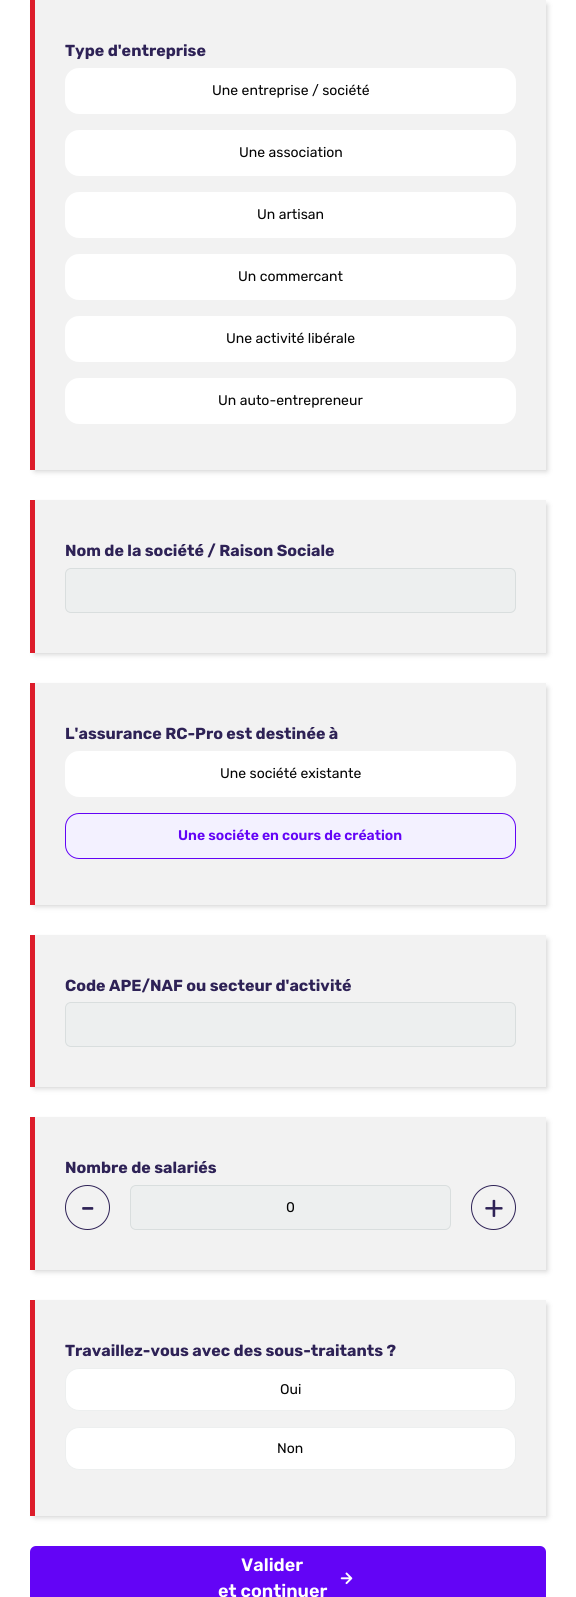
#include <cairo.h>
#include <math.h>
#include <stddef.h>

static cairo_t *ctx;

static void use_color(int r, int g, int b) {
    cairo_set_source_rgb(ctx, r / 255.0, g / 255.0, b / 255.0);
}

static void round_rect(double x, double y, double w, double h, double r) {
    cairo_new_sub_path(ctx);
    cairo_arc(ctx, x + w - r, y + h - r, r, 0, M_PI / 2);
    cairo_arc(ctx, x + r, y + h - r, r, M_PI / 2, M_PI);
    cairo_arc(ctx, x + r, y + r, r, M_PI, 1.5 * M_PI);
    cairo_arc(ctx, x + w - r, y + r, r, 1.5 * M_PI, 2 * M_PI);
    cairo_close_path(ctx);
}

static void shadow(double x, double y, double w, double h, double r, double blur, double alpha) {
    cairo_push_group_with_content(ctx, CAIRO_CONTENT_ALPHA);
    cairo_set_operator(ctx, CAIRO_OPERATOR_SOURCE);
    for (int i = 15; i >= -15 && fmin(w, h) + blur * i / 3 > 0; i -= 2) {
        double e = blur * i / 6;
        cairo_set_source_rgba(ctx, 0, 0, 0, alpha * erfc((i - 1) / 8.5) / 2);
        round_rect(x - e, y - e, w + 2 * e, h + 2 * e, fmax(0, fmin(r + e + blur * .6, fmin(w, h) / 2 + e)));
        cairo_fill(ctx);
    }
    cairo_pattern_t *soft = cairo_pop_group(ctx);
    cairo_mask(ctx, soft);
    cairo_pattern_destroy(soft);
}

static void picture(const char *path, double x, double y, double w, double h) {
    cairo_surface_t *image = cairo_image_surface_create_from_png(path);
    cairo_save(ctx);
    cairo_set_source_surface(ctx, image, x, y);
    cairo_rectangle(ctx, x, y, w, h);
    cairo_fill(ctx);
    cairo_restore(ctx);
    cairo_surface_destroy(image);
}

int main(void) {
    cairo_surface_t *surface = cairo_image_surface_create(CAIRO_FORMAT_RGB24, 576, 1597);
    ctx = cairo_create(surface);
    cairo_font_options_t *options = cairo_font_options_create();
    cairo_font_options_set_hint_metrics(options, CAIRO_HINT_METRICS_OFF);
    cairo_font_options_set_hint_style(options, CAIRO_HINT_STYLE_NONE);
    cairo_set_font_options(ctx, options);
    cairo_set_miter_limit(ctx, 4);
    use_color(255, 255, 255);
    cairo_paint(ctx);
    use_color(0, 0, 0);
    shadow(35, 5, 512, 466, 0, 3, 0.2);
    use_color(242, 242, 242);
    cairo_rectangle(ctx, 35, 0, 511, 470);
    cairo_fill(ctx);
    use_color(221, 29, 43);
    cairo_rectangle(ctx, 30, 0, 5, 470);
    cairo_fill(ctx);
    cairo_select_font_face(ctx, "Rubik Light", CAIRO_FONT_SLANT_NORMAL, CAIRO_FONT_WEIGHT_NORMAL);
    cairo_set_font_size(ctx, 16);
    use_color(46, 34, 86);
    cairo_move_to(ctx, 65, 56);
    cairo_show_text(ctx, "Type d'entreprise");
    use_color(255, 255, 255);
    round_rect(65, 68, 451, 46, 14);
    cairo_fill(ctx);
    cairo_select_font_face(ctx, "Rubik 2 Light", CAIRO_FONT_SLANT_NORMAL, CAIRO_FONT_WEIGHT_NORMAL);
    cairo_set_font_size(ctx, 14);
    use_color(4, 4, 4);
    cairo_move_to(ctx, 212, 95);
    cairo_show_text(ctx, "Une entreprise / société");
    use_color(255, 255, 255);
    round_rect(65, 130, 451, 46, 14);
    cairo_fill(ctx);
    use_color(4, 4, 4);
    cairo_move_to(ctx, 239, 157);
    cairo_show_text(ctx, "Une association");
    use_color(255, 255, 255);
    round_rect(65, 192, 451, 46, 14);
    cairo_fill(ctx);
    use_color(4, 4, 4);
    cairo_move_to(ctx, 257, 219);
    cairo_show_text(ctx, "Un artisan");
    use_color(255, 255, 255);
    round_rect(65, 254, 451, 46, 14);
    cairo_fill(ctx);
    use_color(4, 4, 4);
    cairo_move_to(ctx, 238, 281);
    cairo_show_text(ctx, "Un commercant");
    use_color(255, 255, 255);
    round_rect(65, 316, 451, 46, 14);
    cairo_fill(ctx);
    use_color(4, 4, 4);
    cairo_move_to(ctx, 226, 343);
    cairo_show_text(ctx, "Une activité libérale");
    use_color(255, 255, 255);
    round_rect(65, 378, 451, 46, 14);
    cairo_fill(ctx);
    use_color(4, 4, 4);
    cairo_move_to(ctx, 218, 405);
    cairo_show_text(ctx, "Un auto-entrepreneur");
    use_color(0, 0, 0);
    shadow(35, 505, 512, 149, 0, 3, 0.2);
    use_color(242, 242, 242);
    cairo_rectangle(ctx, 35, 500, 511, 153);
    cairo_fill(ctx);
    use_color(221, 29, 43);
    cairo_rectangle(ctx, 30, 500, 5, 153);
    cairo_fill(ctx);
    cairo_select_font_face(ctx, "Rubik Light", CAIRO_FONT_SLANT_NORMAL, CAIRO_FONT_WEIGHT_NORMAL);
    cairo_set_font_size(ctx, 16);
    use_color(46, 34, 86);
    cairo_move_to(ctx, 65, 556);
    cairo_show_text(ctx, "Nom de la société / Raison Sociale");
    use_color(237, 239, 239);
    round_rect(65.5, 568.5, 450, 44, 5.5);
    cairo_fill_preserve(ctx);
    use_color(217, 222, 222);
    cairo_set_line_width(ctx, 1);
    cairo_stroke(ctx);
    use_color(0, 0, 0);
    shadow(35, 688, 512, 218, 0, 3, 0.2);
    use_color(242, 242, 242);
    cairo_rectangle(ctx, 35, 683, 511, 222);
    cairo_fill(ctx);
    use_color(221, 29, 43);
    cairo_rectangle(ctx, 30, 683, 5, 222);
    cairo_fill(ctx);
    use_color(46, 34, 86);
    cairo_move_to(ctx, 65, 739);
    cairo_show_text(ctx, "L'assurance RC-Pro est destinée à");
    use_color(255, 255, 255);
    round_rect(65, 751, 451, 46, 14);
    cairo_fill(ctx);
    cairo_select_font_face(ctx, "Rubik 2 Light", CAIRO_FONT_SLANT_NORMAL, CAIRO_FONT_WEIGHT_NORMAL);
    cairo_set_font_size(ctx, 14);
    use_color(4, 4, 4);
    cairo_move_to(ctx, 220, 778);
    cairo_show_text(ctx, "Une société existante");
    use_color(243, 241, 255);
    round_rect(65.5, 813.5, 450, 45, 13.5);
    cairo_fill_preserve(ctx);
    use_color(99, 4, 246);
    cairo_stroke(ctx);
    cairo_select_font_face(ctx, "Rubik SemiBold", CAIRO_FONT_SLANT_NORMAL, CAIRO_FONT_WEIGHT_NORMAL);
    cairo_move_to(ctx, 178, 840);
    cairo_show_text(ctx, "Une sociéte en cours de création");
    use_color(0, 0, 0);
    shadow(35, 940, 512, 148, 0, 3, 0.2);
    use_color(242, 242, 242);
    cairo_rectangle(ctx, 35, 935, 511, 152);
    cairo_fill(ctx);
    use_color(221, 29, 43);
    cairo_rectangle(ctx, 30, 935, 5, 152);
    cairo_fill(ctx);
    cairo_select_font_face(ctx, "Rubik Light", CAIRO_FONT_SLANT_NORMAL, CAIRO_FONT_WEIGHT_NORMAL);
    cairo_set_font_size(ctx, 16);
    use_color(46, 34, 86);
    cairo_move_to(ctx, 65, 991);
    cairo_show_text(ctx, "Code APE/NAF ou secteur d'activité");
    use_color(237, 239, 239);
    round_rect(65.5, 1002.5, 450, 44, 5.5);
    cairo_fill_preserve(ctx);
    use_color(217, 222, 222);
    cairo_stroke(ctx);
    use_color(0, 0, 0);
    shadow(35, 1122, 512, 149, 0, 3, 0.2);
    use_color(242, 242, 242);
    cairo_rectangle(ctx, 35, 1117, 511, 153);
    cairo_fill(ctx);
    use_color(221, 29, 43);
    cairo_rectangle(ctx, 30, 1117, 5, 153);
    cairo_fill(ctx);
    use_color(46, 34, 86);
    cairo_move_to(ctx, 65, 1173);
    cairo_show_text(ctx, "Nombre de salariés");
    cairo_new_path(ctx);
    cairo_arc(ctx, 87.5, 1207.5, 22, 0, 2 * M_PI);
    cairo_stroke(ctx);
    cairo_select_font_face(ctx, "Rubik 2 Light", CAIRO_FONT_SLANT_NORMAL, CAIRO_FONT_WEIGHT_NORMAL);
    cairo_set_font_size(ctx, 32);
    cairo_move_to(ctx, 80, 1218);
    cairo_show_text(ctx, "-");
    use_color(237, 239, 239);
    round_rect(130.5, 1185.5, 320, 44, 5.5);
    cairo_fill_preserve(ctx);
    use_color(217, 222, 222);
    cairo_stroke(ctx);
    cairo_set_font_size(ctx, 14);
    use_color(4, 4, 4);
    cairo_move_to(ctx, 286, 1212);
    cairo_show_text(ctx, "0");
    cairo_new_path(ctx);
    cairo_arc(ctx, 493.5, 1207.5, 22, 0, 2 * M_PI);
    use_color(46, 34, 86);
    cairo_stroke(ctx);
    cairo_set_font_size(ctx, 32);
    cairo_move_to(ctx, 484, 1218);
    cairo_show_text(ctx, "+");
    use_color(0, 0, 0);
    shadow(35, 1305, 512, 212, 0, 3, 0.2);
    use_color(242, 242, 242);
    cairo_rectangle(ctx, 35, 1300, 511, 216);
    cairo_fill(ctx);
    use_color(221, 29, 43);
    cairo_rectangle(ctx, 30, 1300, 5, 216);
    cairo_fill(ctx);
    cairo_select_font_face(ctx, "Rubik Light", CAIRO_FONT_SLANT_NORMAL, CAIRO_FONT_WEIGHT_NORMAL);
    cairo_set_font_size(ctx, 16);
    use_color(46, 34, 86);
    cairo_move_to(ctx, 65, 1356);
    cairo_show_text(ctx, "Travaillez-vous avec des sous-traitants ?");
    use_color(255, 255, 255);
    round_rect(65.5, 1368.5, 450, 42, 13.5);
    cairo_fill_preserve(ctx);
    use_color(237, 239, 239);
    cairo_stroke(ctx);
    cairo_select_font_face(ctx, "Rubik 2 Light", CAIRO_FONT_SLANT_NORMAL, CAIRO_FONT_WEIGHT_NORMAL);
    cairo_set_font_size(ctx, 14);
    use_color(4, 4, 4);
    cairo_move_to(ctx, 280, 1394);
    cairo_show_text(ctx, "Oui");
    use_color(255, 255, 255);
    round_rect(65.5, 1427.5, 450, 42, 13.5);
    cairo_fill_preserve(ctx);
    use_color(237, 239, 239);
    cairo_stroke(ctx);
    use_color(4, 4, 4);
    cairo_move_to(ctx, 277, 1453);
    cairo_show_text(ctx, "Non");
    use_color(99, 4, 246);
    round_rect(30, 1546, 516, 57, 6);
    cairo_fill(ctx);
    cairo_select_font_face(ctx, "Rubik SemiBold", CAIRO_FONT_SLANT_NORMAL, CAIRO_FONT_WEIGHT_NORMAL);
    cairo_set_font_size(ctx, 18);
    use_color(255, 255, 255);
    cairo_move_to(ctx, 241, 1571);
    cairo_show_text(ctx, "Valider");
    picture("img1.png", 340, 1572, 13, 13);
    cairo_move_to(ctx, 218, 1597);
    cairo_show_text(ctx, "et continuer");
    cairo_surface_write_to_png(surface, "result.png");
    cairo_font_options_destroy(options);
    cairo_destroy(ctx);
    cairo_surface_destroy(surface);
    return 0;
}
